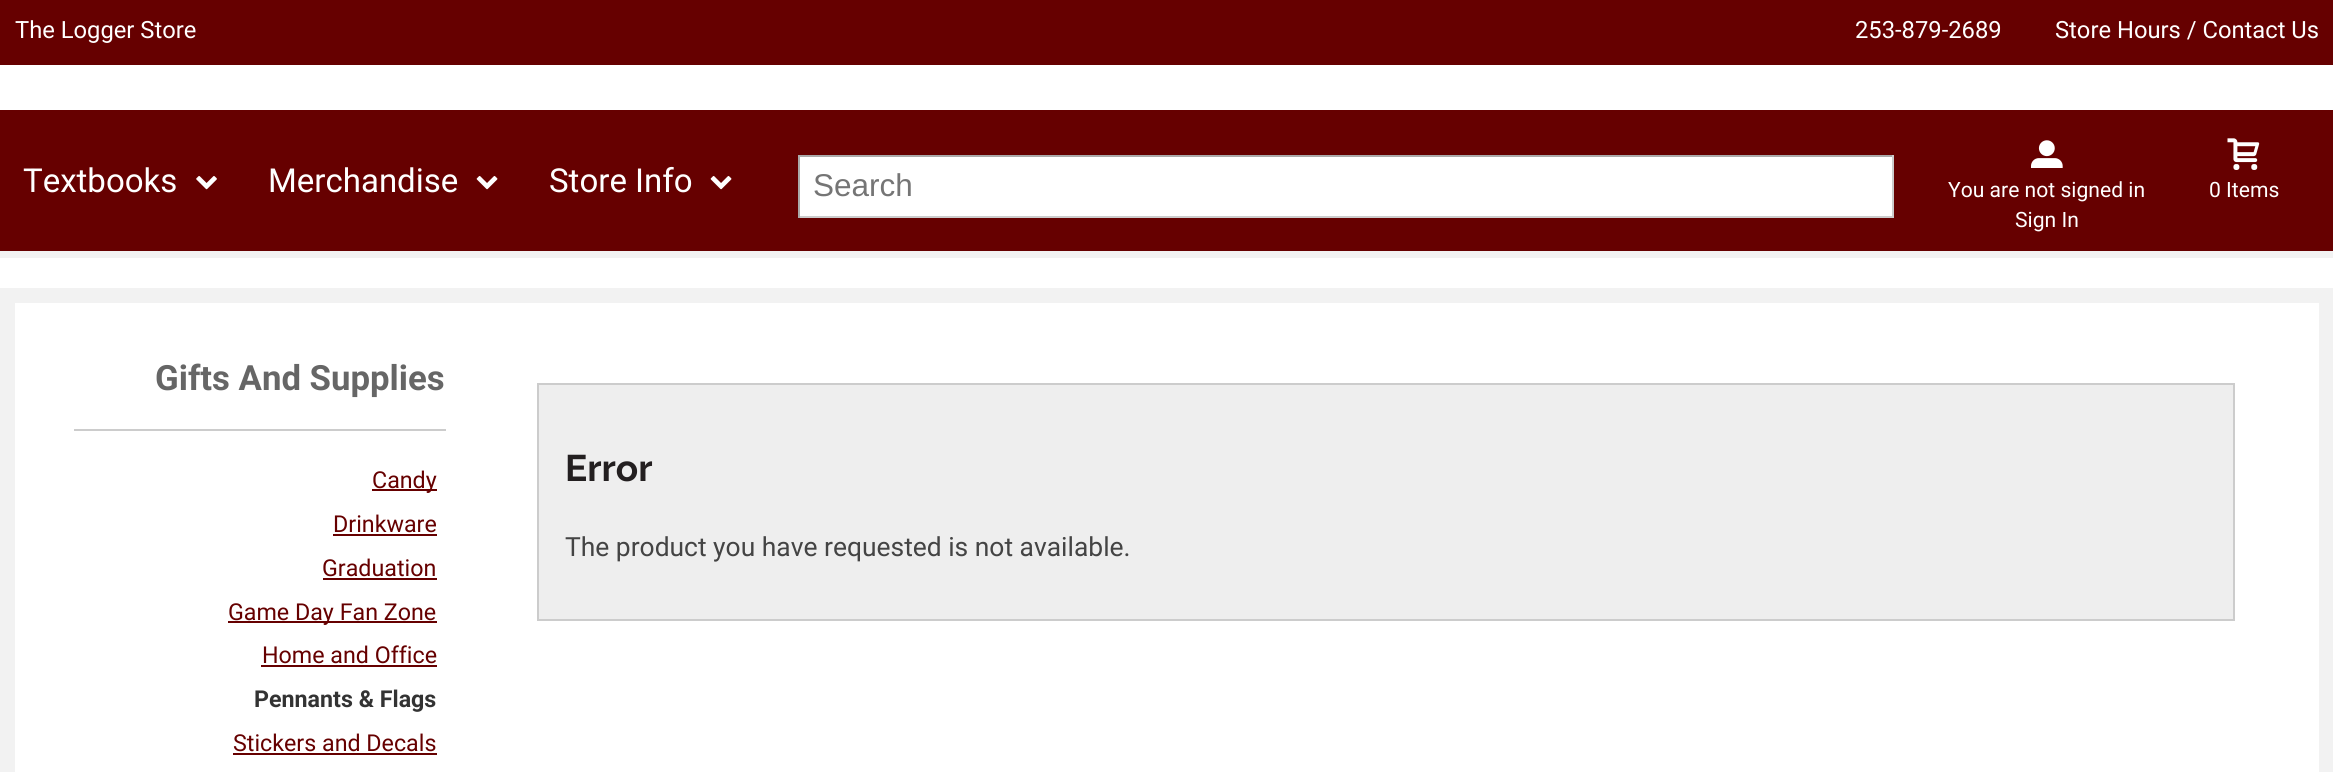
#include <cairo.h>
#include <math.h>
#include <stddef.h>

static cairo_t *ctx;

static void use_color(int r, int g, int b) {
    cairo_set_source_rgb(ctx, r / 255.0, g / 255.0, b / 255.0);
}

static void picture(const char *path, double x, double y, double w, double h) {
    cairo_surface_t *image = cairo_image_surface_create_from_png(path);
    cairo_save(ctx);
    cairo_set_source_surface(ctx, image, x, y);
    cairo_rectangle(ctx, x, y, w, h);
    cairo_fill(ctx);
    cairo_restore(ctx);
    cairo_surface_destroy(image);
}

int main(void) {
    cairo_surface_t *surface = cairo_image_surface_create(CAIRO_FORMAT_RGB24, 2333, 772);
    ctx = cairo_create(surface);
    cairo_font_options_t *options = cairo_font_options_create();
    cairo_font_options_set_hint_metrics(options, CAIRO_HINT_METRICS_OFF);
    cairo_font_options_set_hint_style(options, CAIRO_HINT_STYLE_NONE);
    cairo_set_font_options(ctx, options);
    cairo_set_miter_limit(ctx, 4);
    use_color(255, 255, 255);
    cairo_paint(ctx);
    use_color(102, 0, 0);
    cairo_rectangle(ctx, 0, 0, 2333, 65);
    cairo_fill(ctx);
    cairo_select_font_face(ctx, "Roboto", CAIRO_FONT_SLANT_NORMAL, CAIRO_FONT_WEIGHT_NORMAL);
    cairo_set_font_size(ctx, 23.75);
    use_color(255, 255, 255);
    cairo_move_to(ctx, 15, 38);
    cairo_show_text(ctx, "The Logger Store");
    cairo_move_to(ctx, 1855, 38);
    cairo_show_text(ctx, "253-879-2689");
    cairo_move_to(ctx, 2055, 38);
    cairo_show_text(ctx, "Store Hours / Contact Us");
    use_color(102, 0, 0);
    cairo_rectangle(ctx, 0, 110, 2333, 141);
    cairo_fill(ctx);
    cairo_set_font_size(ctx, 33);
    use_color(255, 255, 255);
    cairo_move_to(ctx, 23, 192);
    cairo_show_text(ctx, "Textbooks");
    picture("img1.png", 196, 176, 21, 14);
    cairo_move_to(ctx, 268, 192);
    cairo_show_text(ctx, "Merchandise");
    picture("img2.png", 476, 176, 22, 14);
    cairo_move_to(ctx, 549, 192);
    cairo_show_text(ctx, "Store Info");
    picture("img2.png", 710, 176, 22, 14);
    cairo_rectangle(ctx, 800, 157, 1092, 59);
    cairo_fill(ctx);
    use_color(170, 170, 170);
    cairo_rectangle(ctx, 798, 155, 1095, 2);
    cairo_fill(ctx);
    use_color(204, 204, 204);
    cairo_rectangle(ctx, 1892, 155, 2, 63);
    cairo_fill(ctx);
    cairo_rectangle(ctx, 798, 216, 1095, 2);
    cairo_fill(ctx);
    use_color(170, 170, 170);
    cairo_rectangle(ctx, 798, 155, 2, 63);
    cairo_fill(ctx);
    cairo_select_font_face(ctx, "Liberation Sans", CAIRO_FONT_SLANT_NORMAL, CAIRO_FONT_WEIGHT_NORMAL);
    cairo_set_font_size(ctx, 31.5);
    use_color(117, 117, 117);
    cairo_move_to(ctx, 813, 196);
    cairo_show_text(ctx, "Search");
    picture("img3.png", 2031, 140, 32, 28);
    cairo_select_font_face(ctx, "Roboto", CAIRO_FONT_SLANT_NORMAL, CAIRO_FONT_WEIGHT_NORMAL);
    cairo_set_font_size(ctx, 21.1);
    use_color(255, 255, 255);
    cairo_move_to(ctx, 1948, 197);
    cairo_show_text(ctx, "You are not signed in");
    cairo_move_to(ctx, 2015, 227);
    cairo_show_text(ctx, "Sign In");
    picture("img4.png", 2227, 138, 33, 32);
    cairo_move_to(ctx, 2209, 197);
    cairo_show_text(ctx, "0 Items");
    use_color(242, 242, 242);
    cairo_rectangle(ctx, 0, 251, 2333, 7);
    cairo_fill(ctx);
    cairo_rectangle(ctx, 7.5, 295.5, 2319, 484);
    cairo_set_line_width(ctx, 15);
    cairo_stroke(ctx);
    cairo_select_font_face(ctx, "Roboto", CAIRO_FONT_SLANT_NORMAL, CAIRO_FONT_WEIGHT_BOLD);
    cairo_set_font_size(ctx, 34.75);
    use_color(102, 102, 102);
    cairo_move_to(ctx, 155, 390);
    cairo_show_text(ctx, "Gifts And Supplies");
    use_color(204, 204, 204);
    cairo_rectangle(ctx, 74, 429, 372, 2);
    cairo_fill(ctx);
    use_color(102, 0, 0);
    cairo_rectangle(ctx, 372, 489, 65, 2);
    cairo_fill(ctx);
    cairo_select_font_face(ctx, "Roboto", CAIRO_FONT_SLANT_NORMAL, CAIRO_FONT_WEIGHT_NORMAL);
    cairo_set_font_size(ctx, 23.25);
    cairo_move_to(ctx, 372, 488);
    cairo_show_text(ctx, "Candy");
    cairo_move_to(ctx, 333, 532);
    cairo_show_text(ctx, "Drinkware");
    cairo_rectangle(ctx, 333, 534, 104, 2);
    cairo_fill(ctx);
    cairo_move_to(ctx, 322, 576);
    cairo_show_text(ctx, "Graduation");
    cairo_rectangle(ctx, 323, 578, 114, 2);
    cairo_fill(ctx);
    cairo_rectangle(ctx, 228, 621, 209, 2);
    cairo_fill(ctx);
    cairo_move_to(ctx, 228, 620);
    cairo_show_text(ctx, "Game Day Fan Zone");
    cairo_move_to(ctx, 262, 663);
    cairo_show_text(ctx, "Home and Office");
    cairo_rectangle(ctx, 261, 665, 176, 2);
    cairo_fill(ctx);
    cairo_select_font_face(ctx, "Roboto", CAIRO_FONT_SLANT_NORMAL, CAIRO_FONT_WEIGHT_BOLD);
    use_color(51, 51, 51);
    cairo_move_to(ctx, 254, 707);
    cairo_show_text(ctx, "Pennants & Flags");
    cairo_select_font_face(ctx, "Roboto", CAIRO_FONT_SLANT_NORMAL, CAIRO_FONT_WEIGHT_NORMAL);
    use_color(102, 0, 0);
    cairo_move_to(ctx, 233, 751);
    cairo_show_text(ctx, "Stickers and Decals");
    cairo_rectangle(ctx, 233, 753, 204, 2);
    cairo_fill(ctx);
    use_color(238, 238, 238);
    cairo_rectangle(ctx, 538, 384, 1696, 236);
    cairo_fill_preserve(ctx);
    use_color(204, 204, 204);
    cairo_set_line_width(ctx, 2);
    cairo_stroke(ctx);
    cairo_select_font_face(ctx, "Raleway", CAIRO_FONT_SLANT_NORMAL, CAIRO_FONT_WEIGHT_BOLD);
    cairo_set_font_size(ctx, 37);
    use_color(35, 31, 32);
    cairo_move_to(ctx, 565, 481);
    cairo_show_text(ctx, "Error");
    cairo_select_font_face(ctx, "Roboto", CAIRO_FONT_SLANT_NORMAL, CAIRO_FONT_WEIGHT_NORMAL);
    cairo_set_font_size(ctx, 26.4);
    use_color(68, 68, 68);
    cairo_move_to(ctx, 565, 556);
    cairo_show_text(ctx, "The product you have requested is not available.");
    cairo_surface_write_to_png(surface, "result.png");
    cairo_font_options_destroy(options);
    cairo_destroy(ctx);
    cairo_surface_destroy(surface);
    return 0;
}
